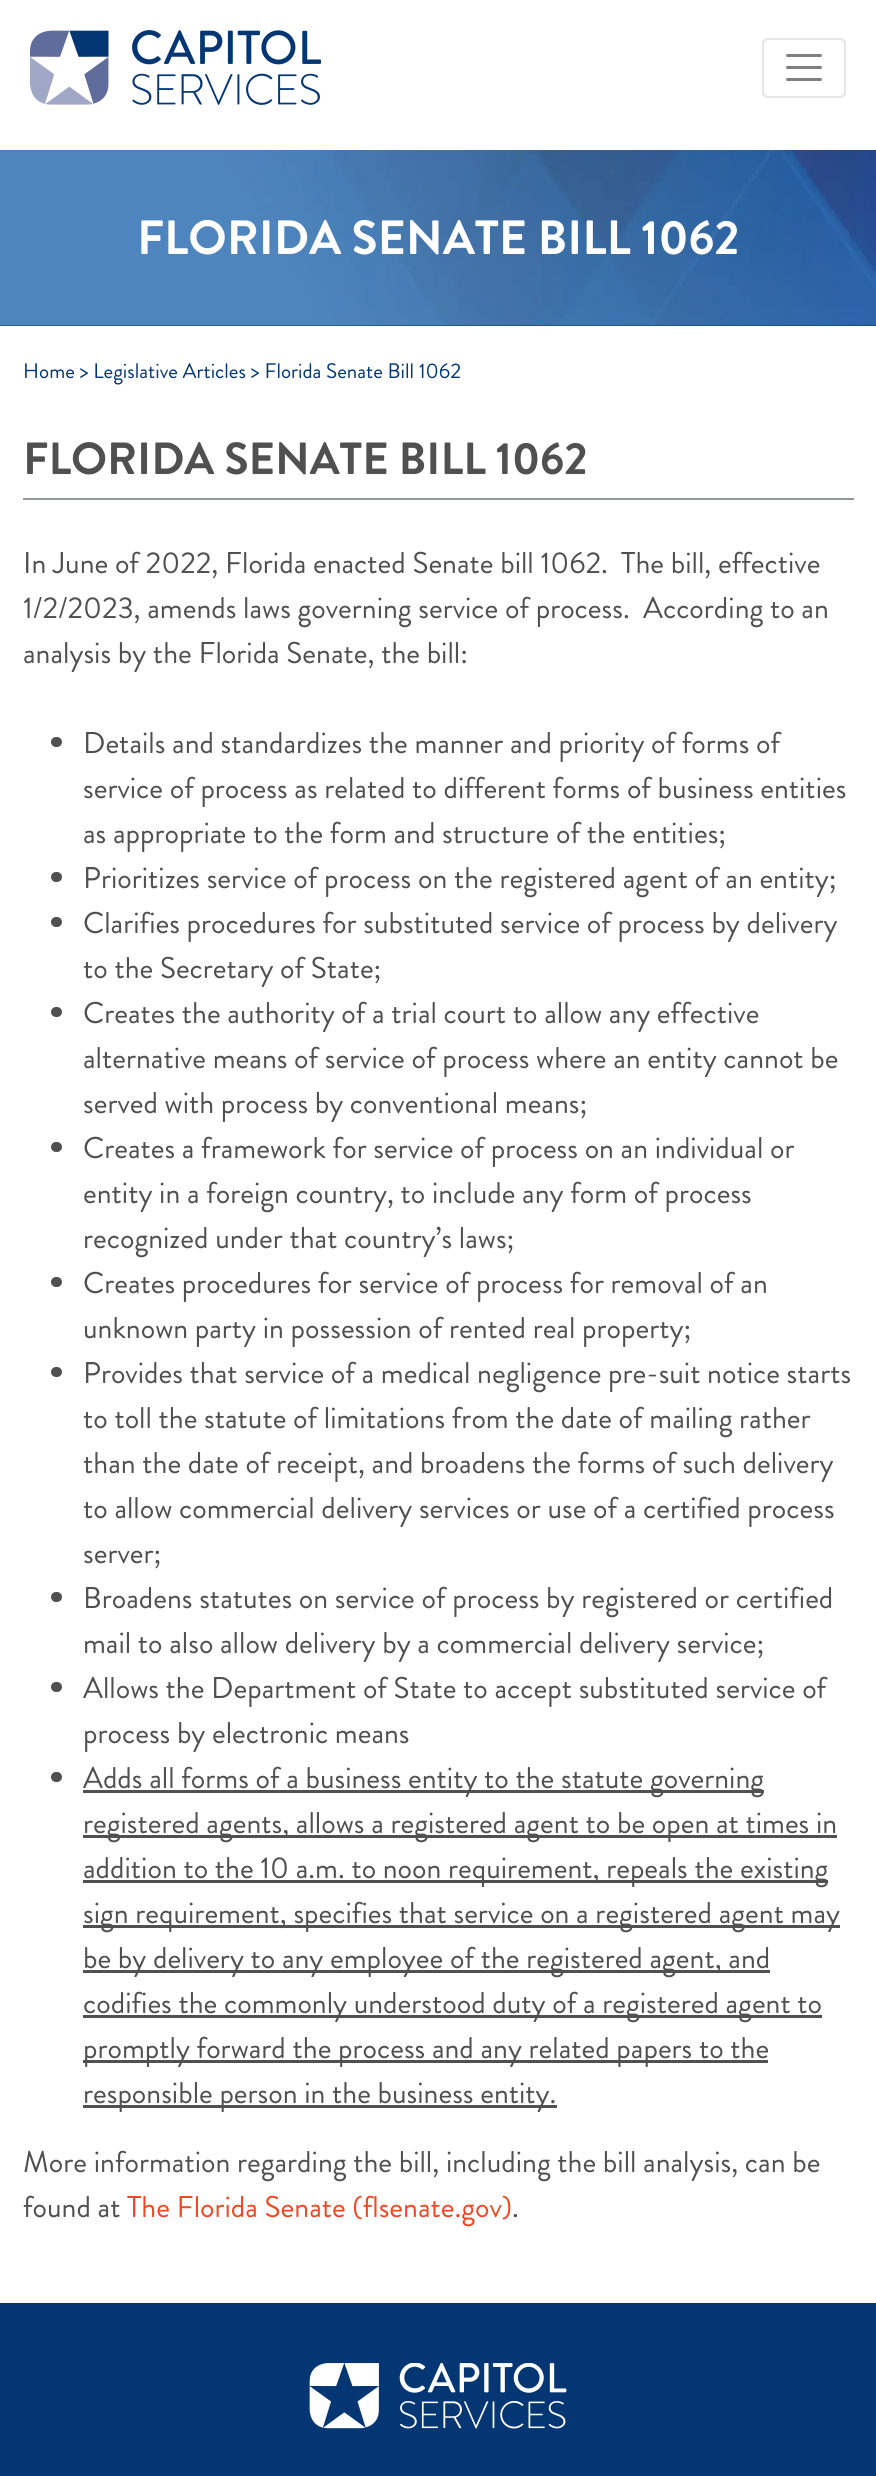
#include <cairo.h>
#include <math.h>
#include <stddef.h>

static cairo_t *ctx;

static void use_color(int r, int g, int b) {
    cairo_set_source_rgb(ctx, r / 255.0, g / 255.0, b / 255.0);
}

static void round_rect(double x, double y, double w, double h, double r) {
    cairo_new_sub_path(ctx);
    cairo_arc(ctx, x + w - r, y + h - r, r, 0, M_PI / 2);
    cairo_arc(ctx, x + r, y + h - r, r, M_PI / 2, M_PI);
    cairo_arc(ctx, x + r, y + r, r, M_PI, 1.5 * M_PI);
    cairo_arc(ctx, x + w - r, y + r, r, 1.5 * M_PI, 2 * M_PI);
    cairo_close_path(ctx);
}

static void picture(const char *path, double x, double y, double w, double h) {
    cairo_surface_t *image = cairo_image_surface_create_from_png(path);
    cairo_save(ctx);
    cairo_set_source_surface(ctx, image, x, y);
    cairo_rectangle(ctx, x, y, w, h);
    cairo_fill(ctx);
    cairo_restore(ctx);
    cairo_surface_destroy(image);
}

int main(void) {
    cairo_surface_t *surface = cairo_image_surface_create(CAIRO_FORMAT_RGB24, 876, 2476);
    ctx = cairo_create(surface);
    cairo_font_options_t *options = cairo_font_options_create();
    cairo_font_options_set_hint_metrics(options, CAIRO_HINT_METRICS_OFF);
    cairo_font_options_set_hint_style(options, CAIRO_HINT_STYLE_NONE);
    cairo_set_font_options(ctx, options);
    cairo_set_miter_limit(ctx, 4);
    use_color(255, 255, 255);
    cairo_paint(ctx);
    picture("img1.png", 30, 30, 291, 75);
    round_rect(763, 39, 82, 58, 5);
    use_color(230, 230, 230);
    cairo_stroke(ctx);
    cairo_new_path(ctx);
    cairo_move_to(ctx, 787.5, 55.5);
    cairo_line_to(ctx, 820.5, 55.5);
    cairo_move_to(ctx, 787.5, 67.5);
    cairo_line_to(ctx, 820.5, 67.5);
    cairo_move_to(ctx, 787.5, 79.5);
    cairo_line_to(ctx, 820.5, 79.5);
    use_color(128, 128, 128);
    cairo_set_line_width(ctx, 3);
    cairo_set_line_cap(ctx, CAIRO_LINE_CAP_ROUND);
    cairo_stroke(ctx);
    use_color(4, 54, 115);
    cairo_rectangle(ctx, 0, 325, 876, 1);
    cairo_fill(ctx);
    picture("img2.png", 0, 150, 876, 176);
    cairo_select_font_face(ctx, "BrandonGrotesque", CAIRO_FONT_SLANT_NORMAL, CAIRO_FONT_WEIGHT_BOLD);
    cairo_set_font_size(ctx, 48);
    use_color(255, 255, 255);
    cairo_move_to(ctx, 137, 254);
    cairo_show_text(ctx, "FLORIDA SENATE BILL 1062");
    cairo_select_font_face(ctx, "BrandonGrotesque", CAIRO_FONT_SLANT_NORMAL, CAIRO_FONT_WEIGHT_NORMAL);
    cairo_set_font_size(ctx, 21);
    use_color(4, 54, 115);
    cairo_move_to(ctx, 23, 378);
    cairo_show_text(ctx, "Home > Legislative Articles > Florida Senate Bill 1062");
    use_color(149, 152, 154);
    cairo_rectangle(ctx, 23, 498, 831, 2);
    cairo_fill(ctx);
    cairo_select_font_face(ctx, "BrandonGrotesque", CAIRO_FONT_SLANT_NORMAL, CAIRO_FONT_WEIGHT_BOLD);
    cairo_set_font_size(ctx, 45);
    use_color(80, 80, 80);
    cairo_move_to(ctx, 23, 474);
    cairo_show_text(ctx, "FLORIDA SENATE BILL 1062");
    cairo_select_font_face(ctx, "BrandonGrotesque", CAIRO_FONT_SLANT_NORMAL, CAIRO_FONT_WEIGHT_NORMAL);
    cairo_set_font_size(ctx, 30);
    cairo_move_to(ctx, 23, 573);
    cairo_show_text(ctx, "In June of 2022, Florida enacted Senate bill 1062.  The bill, effective");
    cairo_move_to(ctx, 23, 618);
    cairo_show_text(ctx, "1/2/2023, amends laws governing service of process.  According to an");
    cairo_move_to(ctx, 23, 663);
    cairo_show_text(ctx, "analysis by the Florida Senate, the bill:");
    round_rect(51, 737, 11, 10, 5);
    cairo_fill(ctx);
    cairo_move_to(ctx, 83, 753);
    cairo_show_text(ctx, "Details and standardizes the manner and priority of forms of");
    cairo_move_to(ctx, 83, 798);
    cairo_show_text(ctx, "service of process as related to different forms of business entities");
    cairo_move_to(ctx, 83, 843);
    cairo_show_text(ctx, "as appropriate to the form and structure of the entities;");
    round_rect(51, 872, 11, 10, 5);
    cairo_fill(ctx);
    cairo_move_to(ctx, 83, 888);
    cairo_show_text(ctx, "Prioritizes service of process on the registered agent of an entity;");
    round_rect(51, 917, 11, 10, 5);
    cairo_fill(ctx);
    cairo_move_to(ctx, 83, 933);
    cairo_show_text(ctx, "Clarifies procedures for substituted service of process by delivery");
    cairo_move_to(ctx, 83, 978);
    cairo_show_text(ctx, "to the Secretary of State;");
    round_rect(51, 1007, 11, 10, 5);
    cairo_fill(ctx);
    cairo_move_to(ctx, 83, 1023);
    cairo_show_text(ctx, "Creates the authority of a trial court to allow any effective");
    cairo_move_to(ctx, 83, 1068);
    cairo_show_text(ctx, "alternative means of service of process where an entity cannot be");
    cairo_move_to(ctx, 83, 1113);
    cairo_show_text(ctx, "served with process by conventional means;");
    round_rect(51, 1142, 11, 10, 5);
    cairo_fill(ctx);
    cairo_move_to(ctx, 83, 1158);
    cairo_show_text(ctx, "Creates a framework for service of process on an individual or");
    cairo_move_to(ctx, 83, 1203);
    cairo_show_text(ctx, "entity in a foreign country, to include any form of process");
    cairo_move_to(ctx, 83, 1248);
    cairo_show_text(ctx, "recognized under that country’s laws;");
    round_rect(51, 1277, 11, 10, 5);
    cairo_fill(ctx);
    cairo_move_to(ctx, 83, 1293);
    cairo_show_text(ctx, "Creates procedures for service of process for removal of an");
    cairo_move_to(ctx, 83, 1338);
    cairo_show_text(ctx, "unknown party in possession of rented real property;");
    round_rect(51, 1367, 11, 10, 5);
    cairo_fill(ctx);
    cairo_move_to(ctx, 83, 1383);
    cairo_show_text(ctx, "Provides that service of a medical negligence pre-suit notice starts");
    cairo_move_to(ctx, 83, 1428);
    cairo_show_text(ctx, "to toll the statute of limitations from the date of mailing rather");
    cairo_move_to(ctx, 83, 1473);
    cairo_show_text(ctx, "than the date of receipt, and broadens the forms of such delivery");
    cairo_move_to(ctx, 83, 1518);
    cairo_show_text(ctx, "to allow commercial delivery services or use of a certified process");
    cairo_move_to(ctx, 83, 1563);
    cairo_show_text(ctx, "server;");
    round_rect(51, 1592, 11, 10, 5);
    cairo_fill(ctx);
    cairo_move_to(ctx, 83, 1608);
    cairo_show_text(ctx, "Broadens statutes on service of process by registered or certified");
    cairo_move_to(ctx, 83, 1653);
    cairo_show_text(ctx, "mail to also allow delivery by a commercial delivery service;");
    round_rect(51, 1682, 11, 10, 5);
    cairo_fill(ctx);
    cairo_move_to(ctx, 83, 1698);
    cairo_show_text(ctx, "Allows the Department of State to accept substituted service of");
    cairo_move_to(ctx, 83, 1743);
    cairo_show_text(ctx, "process by electronic means");
    round_rect(51, 1772, 11, 10, 5);
    cairo_fill(ctx);
    cairo_rectangle(ctx, 83, 1790, 681, 3);
    cairo_fill(ctx);
    cairo_move_to(ctx, 83, 1788);
    cairo_show_text(ctx, "Adds all forms of a business entity to the statute governing");
    cairo_rectangle(ctx, 83, 1835, 754, 3);
    cairo_fill(ctx);
    cairo_move_to(ctx, 83, 1833);
    cairo_show_text(ctx, "registered agents, allows a registered agent to be open at times in");
    cairo_rectangle(ctx, 83, 1880, 745, 3);
    cairo_fill(ctx);
    cairo_move_to(ctx, 83, 1878);
    cairo_show_text(ctx, "addition to the 10 a.m. to noon requirement, repeals the existing");
    cairo_rectangle(ctx, 83, 1925, 757, 3);
    cairo_fill(ctx);
    cairo_move_to(ctx, 83, 1923);
    cairo_show_text(ctx, "sign requirement, specifies that service on a registered agent may");
    cairo_rectangle(ctx, 83, 1970, 687, 3);
    cairo_fill(ctx);
    cairo_move_to(ctx, 83, 1968);
    cairo_show_text(ctx, "be by delivery to any employee of the registered agent, and");
    cairo_rectangle(ctx, 83, 2015, 739, 3);
    cairo_fill(ctx);
    cairo_move_to(ctx, 83, 2013);
    cairo_show_text(ctx, "codifies the commonly understood duty of a registered agent to");
    cairo_rectangle(ctx, 83, 2060, 685, 3);
    cairo_fill(ctx);
    cairo_move_to(ctx, 83, 2058);
    cairo_show_text(ctx, "promptly forward the process and any related papers to the");
    cairo_rectangle(ctx, 83, 2105, 474, 3);
    cairo_fill(ctx);
    cairo_move_to(ctx, 83, 2103);
    cairo_show_text(ctx, "responsible person in the business entity.");
    cairo_move_to(ctx, 23, 2172);
    cairo_show_text(ctx, "More information regarding the bill, including the bill analysis, can be");
    cairo_move_to(ctx, 23, 2217);
    cairo_show_text(ctx, "found at");
    use_color(239, 72, 34);
    cairo_move_to(ctx, 127, 2217);
    cairo_show_text(ctx, "The Florida Senate (flsenate.gov)");
    use_color(80, 80, 80);
    cairo_move_to(ctx, 512, 2217);
    cairo_show_text(ctx, ".");
    use_color(4, 54, 115);
    cairo_rectangle(ctx, 0, 2303, 876, 173);
    cairo_fill(ctx);
    picture("img3.png", 309, 2363, 258, 66);
    cairo_surface_write_to_png(surface, "result.png");
    cairo_font_options_destroy(options);
    cairo_destroy(ctx);
    cairo_surface_destroy(surface);
    return 0;
}
